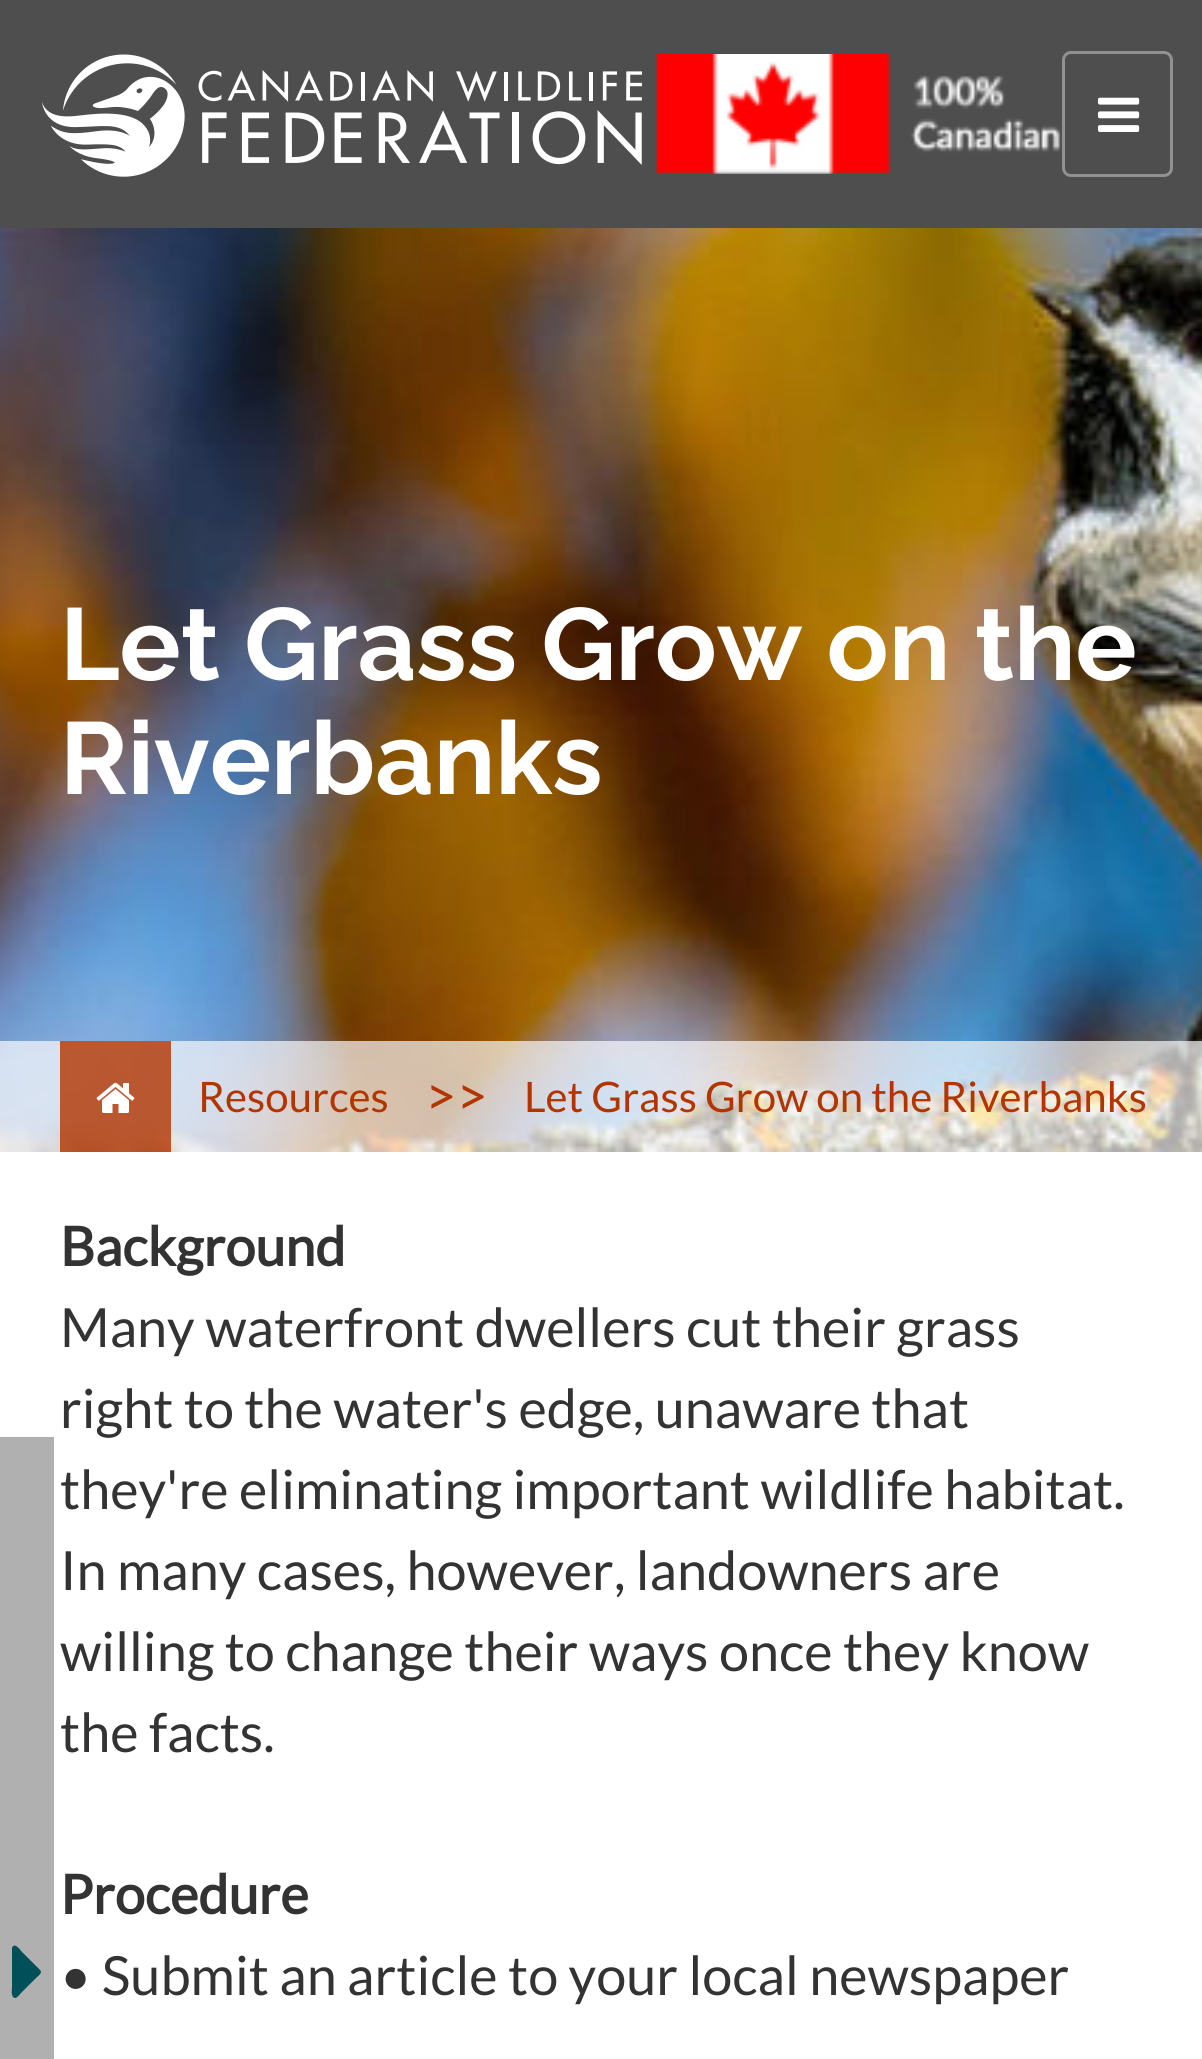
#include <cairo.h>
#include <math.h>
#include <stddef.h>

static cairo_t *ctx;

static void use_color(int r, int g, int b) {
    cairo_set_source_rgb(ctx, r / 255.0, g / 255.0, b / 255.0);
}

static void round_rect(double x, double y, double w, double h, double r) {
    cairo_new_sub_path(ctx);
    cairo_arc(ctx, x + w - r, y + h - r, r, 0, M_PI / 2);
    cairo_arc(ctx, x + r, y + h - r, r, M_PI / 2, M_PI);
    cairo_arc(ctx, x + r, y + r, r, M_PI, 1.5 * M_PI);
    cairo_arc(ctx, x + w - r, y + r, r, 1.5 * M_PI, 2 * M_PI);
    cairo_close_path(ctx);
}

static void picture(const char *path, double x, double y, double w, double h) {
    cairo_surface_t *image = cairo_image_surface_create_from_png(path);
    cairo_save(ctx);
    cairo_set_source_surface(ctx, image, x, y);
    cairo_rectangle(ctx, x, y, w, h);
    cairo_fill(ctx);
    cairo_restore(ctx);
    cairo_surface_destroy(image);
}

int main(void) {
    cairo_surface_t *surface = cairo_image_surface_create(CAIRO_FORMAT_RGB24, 1202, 2059);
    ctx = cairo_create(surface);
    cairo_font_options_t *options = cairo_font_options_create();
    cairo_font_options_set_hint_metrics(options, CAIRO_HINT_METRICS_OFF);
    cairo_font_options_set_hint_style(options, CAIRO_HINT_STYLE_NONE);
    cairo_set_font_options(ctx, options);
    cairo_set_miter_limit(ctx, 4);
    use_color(255, 255, 255);
    cairo_paint(ctx);
    use_color(78, 78, 78);
    cairo_rectangle(ctx, 0, 0, 1202, 228);
    cairo_fill(ctx);
    picture("img1.png", 42, 54, 600, 123);
    picture("img2.png", 656, 54, 406, 120);
    round_rect(1063.5, 52.5, 108, 123, 7.5);
    use_color(144, 145, 145);
    cairo_set_line_width(ctx, 3);
    cairo_stroke(ctx);
    picture("img3.png", 1098, 97, 42, 35);
    picture("img4.png", 0, 228, 1202, 924);
    cairo_select_font_face(ctx, "Raleway", CAIRO_FONT_SLANT_NORMAL, CAIRO_FONT_WEIGHT_BOLD);
    cairo_set_font_size(ctx, 102);
    use_color(255, 255, 255);
    cairo_move_to(ctx, 60, 680);
    cairo_show_text(ctx, "Let Grass Grow on the");
    cairo_move_to(ctx, 60, 794);
    cairo_show_text(ctx, "Riverbanks");
    cairo_set_source_rgba(ctx, 1, 1, 1, 0.67);
    cairo_rectangle(ctx, 0, 1041, 1202, 111);
    cairo_fill(ctx);
    cairo_set_source_rgba(ctx, 0.698, 0.208, 0, 0.8);
    cairo_rectangle(ctx, 60, 1041, 111, 111);
    cairo_fill(ctx);
    picture("img5.png", 96, 1082, 39, 31);
    cairo_select_font_face(ctx, "Lato", CAIRO_FONT_SLANT_NORMAL, CAIRO_FONT_WEIGHT_NORMAL);
    cairo_set_font_size(ctx, 42);
    use_color(178, 53, 0);
    cairo_move_to(ctx, 198, 1112);
    cairo_show_text(ctx, "Resources");
    cairo_set_font_size(ctx, 54);
    cairo_move_to(ctx, 425, 1115);
    cairo_show_text(ctx, ">>");
    cairo_set_font_size(ctx, 42);
    cairo_move_to(ctx, 524, 1112);
    cairo_show_text(ctx, "Let Grass Grow on the Riverbanks");
    use_color(176, 176, 176);
    cairo_rectangle(ctx, 0, 1437, 54, 622);
    cairo_fill(ctx);
    use_color(0, 79, 89);
    cairo_new_path(ctx);
    cairo_move_to(ctx, 40, 1970);
    cairo_curve_to(ctx, 43, 1973, 38, 1976, 36, 1978);
    cairo_line_to(ctx, 21, 1993);
    cairo_curve_to(ctx, 19, 1995, 16, 2000, 13, 1997);
    cairo_curve_to(ctx, 11, 1994, 12, 1988, 12, 1987);
    cairo_line_to(ctx, 12, 1948);
    cairo_curve_to(ctx, 14, 1942, 20, 1949, 21, 1951);
    cairo_close_path(ctx);
    cairo_fill(ctx);
    cairo_select_font_face(ctx, "Lato", CAIRO_FONT_SLANT_NORMAL, CAIRO_FONT_WEIGHT_BOLD);
    cairo_set_font_size(ctx, 54);
    use_color(51, 51, 51);
    cairo_move_to(ctx, 60, 1266);
    cairo_show_text(ctx, "Background");
    cairo_select_font_face(ctx, "Lato", CAIRO_FONT_SLANT_NORMAL, CAIRO_FONT_WEIGHT_NORMAL);
    cairo_move_to(ctx, 60, 1347);
    cairo_show_text(ctx, "Many waterfront dwellers cut their grass");
    cairo_move_to(ctx, 60, 1428);
    cairo_show_text(ctx, "right to the water's edge, unaware that");
    cairo_move_to(ctx, 60, 1509);
    cairo_show_text(ctx, "they're eliminating important wildlife habitat.");
    cairo_move_to(ctx, 60, 1590);
    cairo_show_text(ctx, "In many cases, however, landowners are");
    cairo_move_to(ctx, 60, 1671);
    cairo_show_text(ctx, "willing to change their ways once they know");
    cairo_move_to(ctx, 60, 1752);
    cairo_show_text(ctx, "the facts.");
    cairo_select_font_face(ctx, "Lato", CAIRO_FONT_SLANT_NORMAL, CAIRO_FONT_WEIGHT_BOLD);
    cairo_move_to(ctx, 60, 1914);
    cairo_show_text(ctx, "Procedure");
    cairo_select_font_face(ctx, "Lato", CAIRO_FONT_SLANT_NORMAL, CAIRO_FONT_WEIGHT_NORMAL);
    cairo_move_to(ctx, 60, 1995);
    cairo_show_text(ctx, "• Submit an article to your local newspaper");
    cairo_surface_write_to_png(surface, "result.png");
    cairo_font_options_destroy(options);
    cairo_destroy(ctx);
    cairo_surface_destroy(surface);
    return 0;
}
